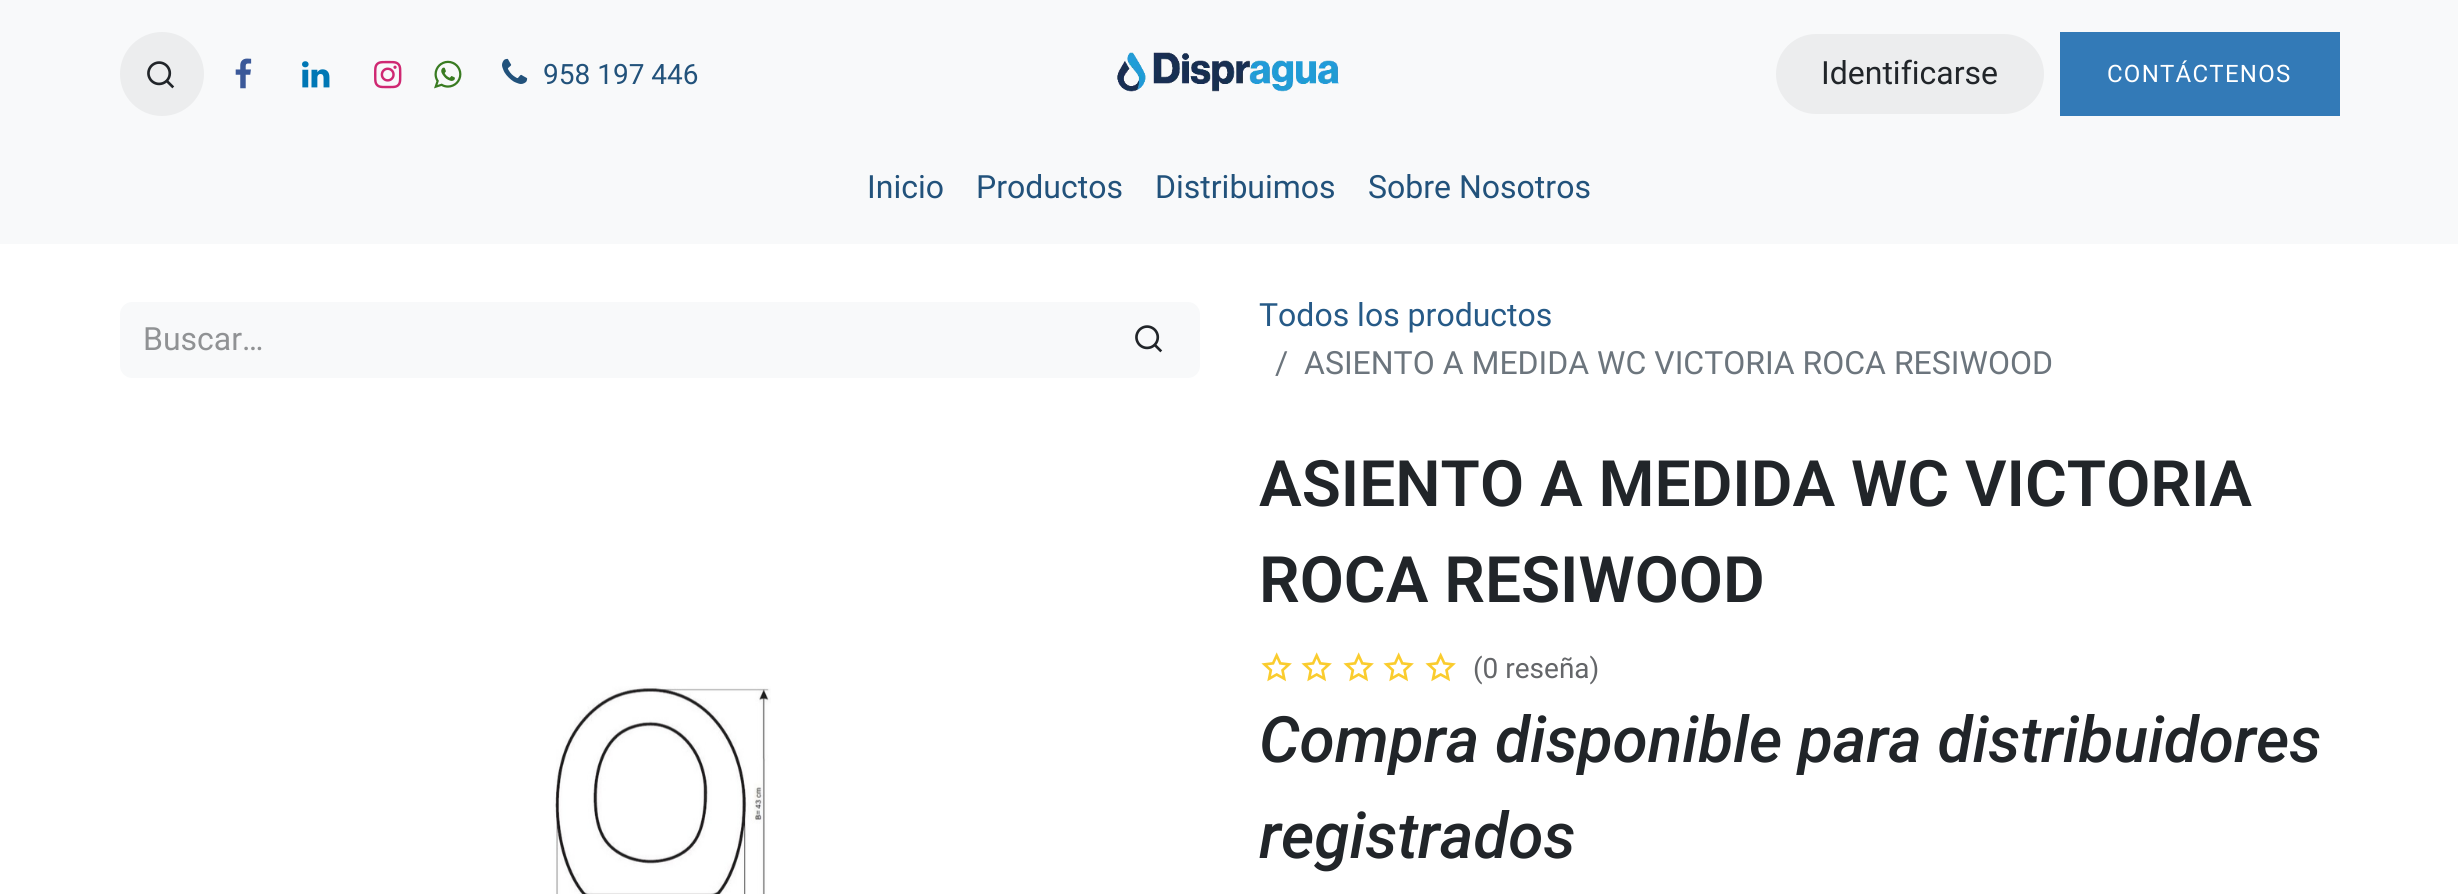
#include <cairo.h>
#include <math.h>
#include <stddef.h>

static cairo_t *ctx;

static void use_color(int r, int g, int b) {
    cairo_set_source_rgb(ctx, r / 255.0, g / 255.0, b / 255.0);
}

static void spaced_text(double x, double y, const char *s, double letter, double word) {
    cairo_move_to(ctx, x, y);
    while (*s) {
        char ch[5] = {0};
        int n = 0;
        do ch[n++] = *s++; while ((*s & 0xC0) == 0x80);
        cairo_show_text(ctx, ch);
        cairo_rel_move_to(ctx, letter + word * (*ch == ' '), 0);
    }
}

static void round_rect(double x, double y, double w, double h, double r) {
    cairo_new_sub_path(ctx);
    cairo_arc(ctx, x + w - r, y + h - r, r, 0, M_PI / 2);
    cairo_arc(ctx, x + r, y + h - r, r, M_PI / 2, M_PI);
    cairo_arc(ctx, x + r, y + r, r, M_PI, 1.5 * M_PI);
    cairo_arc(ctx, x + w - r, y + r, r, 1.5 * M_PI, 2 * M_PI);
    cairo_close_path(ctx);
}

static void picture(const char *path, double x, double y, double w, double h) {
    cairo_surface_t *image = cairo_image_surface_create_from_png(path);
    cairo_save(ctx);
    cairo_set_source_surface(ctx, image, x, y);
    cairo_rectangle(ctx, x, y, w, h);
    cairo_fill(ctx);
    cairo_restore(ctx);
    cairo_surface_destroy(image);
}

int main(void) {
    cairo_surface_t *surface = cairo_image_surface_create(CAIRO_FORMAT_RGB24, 2458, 894);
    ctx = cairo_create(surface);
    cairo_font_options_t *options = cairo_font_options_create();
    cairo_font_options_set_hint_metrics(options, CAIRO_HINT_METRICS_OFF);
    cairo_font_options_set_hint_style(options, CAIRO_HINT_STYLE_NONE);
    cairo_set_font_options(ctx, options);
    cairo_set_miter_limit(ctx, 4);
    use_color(255, 255, 255);
    cairo_paint(ctx);
    use_color(248, 249, 250);
    cairo_rectangle(ctx, 0, 0, 2458, 244);
    cairo_fill(ctx);
    use_color(236, 237, 238);
    cairo_arc(ctx, 162, 74, 42, 0, 2 * M_PI);
    cairo_fill(ctx);
    picture("img1.png", 147, 61, 28, 28);
    picture("img2.png", 235, 58, 17, 31);
    picture("img3.png", 302, 61, 28, 27);
    picture("img4.png", 374, 60, 28, 29);
    picture("img5.png", 434, 60, 28, 29);
    picture("img6.png", 502, 58, 26, 26);
    cairo_select_font_face(ctx, "Roboto", CAIRO_FONT_SLANT_NORMAL, CAIRO_FONT_WEIGHT_NORMAL);
    cairo_set_font_size(ctx, 28);
    use_color(34, 82, 123);
    cairo_move_to(ctx, 543, 84);
    cairo_show_text(ctx, "958 197 446");
    picture("img7.png", 1117, 52, 222, 40);
    use_color(236, 237, 238);
    round_rect(1776, 34, 268, 80, 40);
    cairo_fill(ctx);
    cairo_set_font_size(ctx, 32);
    use_color(33, 37, 41);
    cairo_move_to(ctx, 1821, 84);
    cairo_show_text(ctx, "Identificarse");
    use_color(51, 122, 183);
    cairo_rectangle(ctx, 2060, 32, 280, 84);
    cairo_fill(ctx);
    cairo_set_font_size(ctx, 24);
    use_color(255, 255, 255);
    spaced_text(2107, 82, "CONTÁCTENOS", 1.25, 0);
    cairo_set_font_size(ctx, 32);
    use_color(34, 82, 123);
    cairo_move_to(ctx, 867, 198);
    cairo_show_text(ctx, "Inicio");
    cairo_move_to(ctx, 976, 198);
    cairo_show_text(ctx, "Productos");
    cairo_move_to(ctx, 1155, 198);
    cairo_show_text(ctx, "Distribuimos");
    cairo_move_to(ctx, 1368, 198);
    cairo_show_text(ctx, "Sobre Nosotros");
    use_color(248, 249, 250);
    cairo_new_path(ctx);
    cairo_move_to(ctx, 132, 302);
    cairo_line_to(ctx, 1100, 302);
    cairo_line_to(ctx, 1100, 378);
    cairo_line_to(ctx, 132, 378);
    cairo_curve_to(ctx, 125.5, 378, 120, 372.5, 120, 366);
    cairo_line_to(ctx, 120, 314);
    cairo_curve_to(ctx, 120, 307.5, 125.5, 302, 132, 302);
    cairo_close_path(ctx);
    cairo_fill(ctx);
    use_color(144, 146, 148);
    cairo_move_to(ctx, 143, 350);
    cairo_show_text(ctx, "Buscar…");
    use_color(248, 249, 250);
    cairo_new_path(ctx);
    cairo_move_to(ctx, 1098, 302);
    cairo_line_to(ctx, 1188, 302);
    cairo_curve_to(ctx, 1194.5, 302, 1200, 307.5, 1200, 314);
    cairo_line_to(ctx, 1200, 366);
    cairo_curve_to(ctx, 1200, 372.5, 1194.5, 378, 1188, 378);
    cairo_line_to(ctx, 1098, 378);
    cairo_close_path(ctx);
    cairo_fill(ctx);
    picture("img8.png", 1135, 325, 28, 28);
    use_color(38, 90, 135);
    cairo_move_to(ctx, 1259, 326);
    cairo_show_text(ctx, "Todos los productos");
    use_color(108, 117, 125);
    cairo_move_to(ctx, 1275, 374);
    cairo_show_text(ctx, "/");
    cairo_move_to(ctx, 1304, 374);
    cairo_show_text(ctx, "ASIENTO A MEDIDA WC VICTORIA ROCA RESIWOOD");
    picture("img9.png", 553, 686, 218, 208);
    cairo_select_font_face(ctx, "Roboto SemiBold", CAIRO_FONT_SLANT_NORMAL, CAIRO_FONT_WEIGHT_NORMAL);
    cairo_set_font_size(ctx, 64);
    use_color(33, 37, 41);
    cairo_move_to(ctx, 1259, 506);
    cairo_show_text(ctx, "ASIENTO A MEDIDA WC VICTORIA");
    cairo_move_to(ctx, 1259, 602);
    cairo_show_text(ctx, "ROCA RESIWOOD");
    picture("img10.png", 1261, 652, 31, 30);
    picture("img10.png", 1301, 652, 31, 30);
    picture("img10.png", 1343, 652, 31, 30);
    picture("img10.png", 1383, 652, 31, 30);
    picture("img10.png", 1425, 652, 31, 30);
    cairo_select_font_face(ctx, "Roboto", CAIRO_FONT_SLANT_NORMAL, CAIRO_FONT_WEIGHT_NORMAL);
    cairo_set_font_size(ctx, 28);
    use_color(100, 102, 105);
    cairo_move_to(ctx, 1473, 678);
    cairo_show_text(ctx, "(0 reseña)");
    cairo_select_font_face(ctx, "Roboto Medium", CAIRO_FONT_SLANT_ITALIC, CAIRO_FONT_WEIGHT_NORMAL);
    cairo_set_font_size(ctx, 64);
    use_color(33, 37, 41);
    cairo_move_to(ctx, 1259, 762);
    cairo_show_text(ctx, "Compra disponible para distribuidores");
    cairo_move_to(ctx, 1259, 858);
    cairo_show_text(ctx, "registrados");
    cairo_surface_write_to_png(surface, "result.png");
    cairo_font_options_destroy(options);
    cairo_destroy(ctx);
    cairo_surface_destroy(surface);
    return 0;
}
